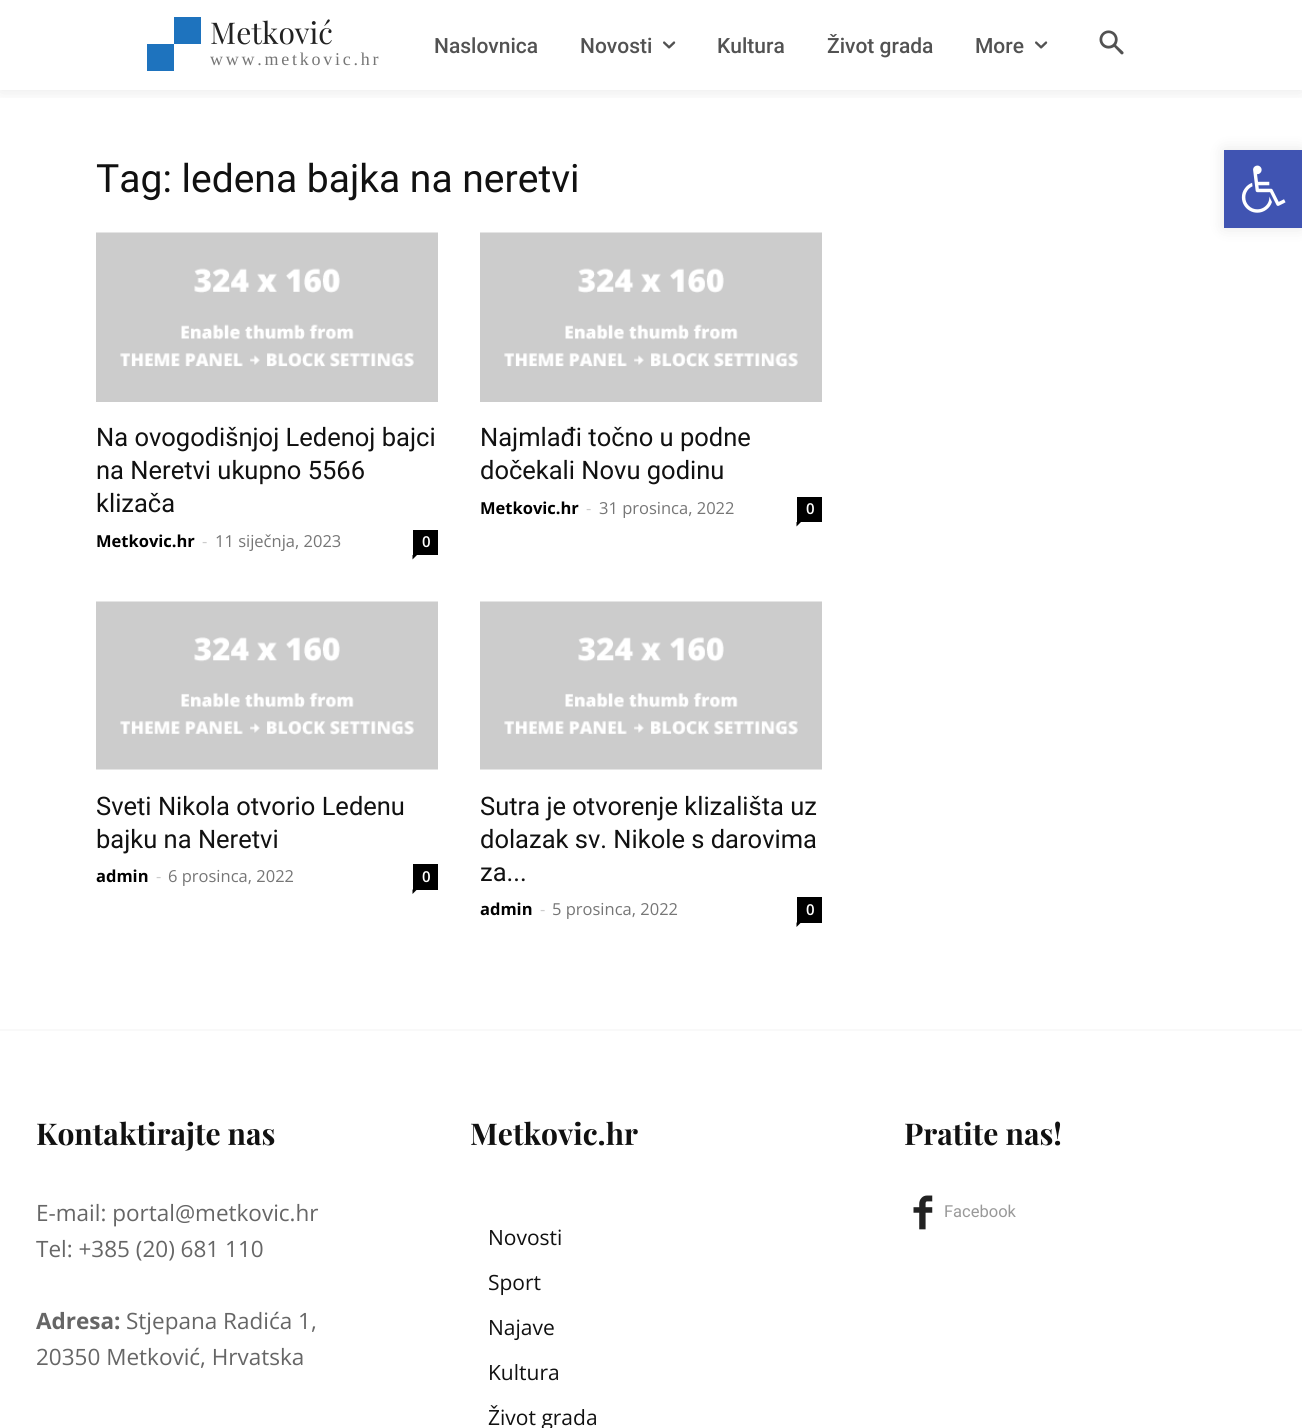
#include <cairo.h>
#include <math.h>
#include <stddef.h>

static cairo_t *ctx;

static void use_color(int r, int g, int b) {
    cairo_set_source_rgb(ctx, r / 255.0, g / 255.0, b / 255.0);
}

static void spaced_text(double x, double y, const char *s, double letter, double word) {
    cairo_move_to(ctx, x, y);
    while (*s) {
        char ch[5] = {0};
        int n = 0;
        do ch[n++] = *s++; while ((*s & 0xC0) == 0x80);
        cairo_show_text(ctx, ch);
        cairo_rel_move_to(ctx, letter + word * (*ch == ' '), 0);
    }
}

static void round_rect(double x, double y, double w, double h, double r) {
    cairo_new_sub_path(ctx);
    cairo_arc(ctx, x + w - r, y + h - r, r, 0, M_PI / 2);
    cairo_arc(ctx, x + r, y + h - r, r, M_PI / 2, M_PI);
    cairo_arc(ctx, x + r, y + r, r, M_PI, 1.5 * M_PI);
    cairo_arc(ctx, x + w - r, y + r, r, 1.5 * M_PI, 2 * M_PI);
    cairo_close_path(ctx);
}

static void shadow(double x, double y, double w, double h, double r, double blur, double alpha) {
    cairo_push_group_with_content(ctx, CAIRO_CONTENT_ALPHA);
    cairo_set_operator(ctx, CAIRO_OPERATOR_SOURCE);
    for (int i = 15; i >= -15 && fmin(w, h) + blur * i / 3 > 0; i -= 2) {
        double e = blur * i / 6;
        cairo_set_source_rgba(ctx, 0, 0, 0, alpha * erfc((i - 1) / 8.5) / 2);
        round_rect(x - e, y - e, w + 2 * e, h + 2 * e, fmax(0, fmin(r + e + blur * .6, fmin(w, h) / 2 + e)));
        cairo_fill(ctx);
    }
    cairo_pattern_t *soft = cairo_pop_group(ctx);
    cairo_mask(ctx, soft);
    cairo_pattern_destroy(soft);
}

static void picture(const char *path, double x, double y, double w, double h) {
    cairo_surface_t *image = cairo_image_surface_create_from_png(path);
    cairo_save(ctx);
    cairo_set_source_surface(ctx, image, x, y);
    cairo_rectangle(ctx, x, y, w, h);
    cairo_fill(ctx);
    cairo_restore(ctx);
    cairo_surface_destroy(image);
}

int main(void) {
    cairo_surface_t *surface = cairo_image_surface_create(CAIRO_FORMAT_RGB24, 1302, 1428);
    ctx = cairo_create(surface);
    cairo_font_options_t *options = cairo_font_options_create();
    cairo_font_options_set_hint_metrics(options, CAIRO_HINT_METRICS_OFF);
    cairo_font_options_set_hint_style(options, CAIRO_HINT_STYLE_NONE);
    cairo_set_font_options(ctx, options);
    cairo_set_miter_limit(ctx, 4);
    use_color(255, 255, 255);
    cairo_paint(ctx);
    cairo_save(ctx);
    cairo_rectangle(ctx, 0, 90, 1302, 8);
    cairo_clip(ctx);
    use_color(0, 0, 0);
    shadow(0, 0, 1302, 90, 0, 9, 0.1);
    cairo_restore(ctx);
    use_color(30, 115, 190);
    cairo_new_path(ctx);
    cairo_move_to(ctx, 147, 71);
    cairo_line_to(ctx, 147, 44);
    cairo_line_to(ctx, 174, 44);
    cairo_line_to(ctx, 174, 71);
    cairo_close_path(ctx);
    cairo_move_to(ctx, 174, 44);
    cairo_line_to(ctx, 174, 17);
    cairo_line_to(ctx, 201, 17);
    cairo_line_to(ctx, 201, 44);
    cairo_close_path(ctx);
    cairo_fill(ctx);
    cairo_select_font_face(ctx, "Playfair Display", CAIRO_FONT_SLANT_NORMAL, CAIRO_FONT_WEIGHT_NORMAL);
    cairo_set_font_size(ctx, 30);
    use_color(34, 34, 34);
    cairo_move_to(ctx, 210, 44);
    cairo_show_text(ctx, "Metković");
    cairo_select_font_face(ctx, "Liberation Serif", CAIRO_FONT_SLANT_NORMAL, CAIRO_FONT_WEIGHT_NORMAL);
    cairo_set_font_size(ctx, 18);
    use_color(118, 118, 118);
    spaced_text(210, 65, "www.metkovic.hr", 2.75, 0);
    cairo_select_font_face(ctx, "Roboto Medium", CAIRO_FONT_SLANT_NORMAL, CAIRO_FONT_WEIGHT_NORMAL);
    cairo_set_font_size(ctx, 21);
    use_color(82, 82, 82);
    cairo_move_to(ctx, 434, 53);
    cairo_show_text(ctx, "Naslovnica");
    cairo_move_to(ctx, 580, 53);
    cairo_show_text(ctx, "Novosti");
    picture("img1.png", 663, 41, 13, 8);
    cairo_move_to(ctx, 717, 53);
    cairo_show_text(ctx, "Kultura");
    cairo_move_to(ctx, 827, 53);
    cairo_show_text(ctx, "Život grada");
    cairo_move_to(ctx, 975, 53);
    cairo_show_text(ctx, "More");
    picture("img1.png", 1035, 41, 13, 8);
    picture("img2.png", 1099, 30, 25, 25);
    cairo_select_font_face(ctx, "Roboto", CAIRO_FONT_SLANT_NORMAL, CAIRO_FONT_WEIGHT_NORMAL);
    cairo_set_font_size(ctx, 39);
    use_color(17, 17, 17);
    cairo_move_to(ctx, 96, 192);
    cairo_show_text(ctx, "Tag: ledena bajka na neretvi");
    picture("img3.png", 96, 232, 342, 170);
    cairo_set_font_size(ctx, 25.5);
    cairo_move_to(ctx, 96, 446);
    cairo_show_text(ctx, "Na ovogodišnjoj Ledenoj bajci");
    cairo_move_to(ctx, 96, 479);
    cairo_show_text(ctx, "na Neretvi ukupno 5566");
    cairo_move_to(ctx, 96, 512);
    cairo_show_text(ctx, "klizača");
    cairo_select_font_face(ctx, "Open Sans", CAIRO_FONT_SLANT_NORMAL, CAIRO_FONT_WEIGHT_BOLD);
    cairo_set_font_size(ctx, 16.5);
    use_color(0, 0, 0);
    cairo_move_to(ctx, 96, 547);
    cairo_show_text(ctx, "Metkovic.hr");
    cairo_select_font_face(ctx, "Open Sans", CAIRO_FONT_SLANT_NORMAL, CAIRO_FONT_WEIGHT_NORMAL);
    use_color(204, 204, 204);
    cairo_move_to(ctx, 202, 547);
    cairo_show_text(ctx, "-");
    use_color(118, 118, 118);
    cairo_move_to(ctx, 215, 547);
    cairo_show_text(ctx, "11 siječnja, 2023");
    use_color(0, 0, 0);
    cairo_rectangle(ctx, 413, 530, 25, 25);
    cairo_fill(ctx);
    cairo_select_font_face(ctx, "Open Sans SemiBold", CAIRO_FONT_SLANT_NORMAL, CAIRO_FONT_WEIGHT_NORMAL);
    cairo_set_font_size(ctx, 15);
    use_color(255, 255, 255);
    cairo_move_to(ctx, 422, 547);
    cairo_show_text(ctx, "0");
    use_color(0, 0, 0);
    cairo_new_path(ctx);
    cairo_move_to(ctx, 412.5, 555);
    cairo_line_to(ctx, 417, 555);
    cairo_line_to(ctx, 412.5, 559.5);
    cairo_close_path(ctx);
    cairo_fill(ctx);
    picture("img4.png", 480, 232, 342, 170);
    cairo_select_font_face(ctx, "Roboto", CAIRO_FONT_SLANT_NORMAL, CAIRO_FONT_WEIGHT_NORMAL);
    cairo_set_font_size(ctx, 25.5);
    use_color(17, 17, 17);
    cairo_move_to(ctx, 480, 446);
    cairo_show_text(ctx, "Najmlađi točno u podne");
    cairo_move_to(ctx, 480, 479);
    cairo_show_text(ctx, "dočekali Novu godinu");
    cairo_select_font_face(ctx, "Open Sans", CAIRO_FONT_SLANT_NORMAL, CAIRO_FONT_WEIGHT_BOLD);
    cairo_set_font_size(ctx, 16.5);
    use_color(0, 0, 0);
    cairo_move_to(ctx, 480, 514);
    cairo_show_text(ctx, "Metkovic.hr");
    cairo_select_font_face(ctx, "Open Sans", CAIRO_FONT_SLANT_NORMAL, CAIRO_FONT_WEIGHT_NORMAL);
    use_color(204, 204, 204);
    cairo_move_to(ctx, 586, 514);
    cairo_show_text(ctx, "-");
    use_color(118, 118, 118);
    cairo_move_to(ctx, 599, 514);
    cairo_show_text(ctx, "31 prosinca, 2022");
    use_color(0, 0, 0);
    cairo_rectangle(ctx, 797, 497, 25, 25);
    cairo_fill(ctx);
    cairo_select_font_face(ctx, "Open Sans SemiBold", CAIRO_FONT_SLANT_NORMAL, CAIRO_FONT_WEIGHT_NORMAL);
    cairo_set_font_size(ctx, 15);
    use_color(255, 255, 255);
    cairo_move_to(ctx, 806, 514);
    cairo_show_text(ctx, "0");
    use_color(0, 0, 0);
    cairo_new_path(ctx);
    cairo_move_to(ctx, 796.5, 522);
    cairo_line_to(ctx, 801, 522);
    cairo_line_to(ctx, 796.5, 526.5);
    cairo_close_path(ctx);
    cairo_fill(ctx);
    picture("img5.png", 96, 601, 342, 169);
    cairo_select_font_face(ctx, "Roboto", CAIRO_FONT_SLANT_NORMAL, CAIRO_FONT_WEIGHT_NORMAL);
    cairo_set_font_size(ctx, 25.5);
    use_color(17, 17, 17);
    cairo_move_to(ctx, 96, 815);
    cairo_show_text(ctx, "Sveti Nikola otvorio Ledenu");
    cairo_move_to(ctx, 96, 848);
    cairo_show_text(ctx, "bajku na Neretvi");
    cairo_select_font_face(ctx, "Open Sans", CAIRO_FONT_SLANT_NORMAL, CAIRO_FONT_WEIGHT_BOLD);
    cairo_set_font_size(ctx, 16.5);
    use_color(0, 0, 0);
    cairo_move_to(ctx, 96, 882);
    cairo_show_text(ctx, "admin");
    cairo_select_font_face(ctx, "Open Sans", CAIRO_FONT_SLANT_NORMAL, CAIRO_FONT_WEIGHT_NORMAL);
    use_color(204, 204, 204);
    cairo_move_to(ctx, 156, 882);
    cairo_show_text(ctx, "-");
    use_color(118, 118, 118);
    cairo_move_to(ctx, 168, 882);
    cairo_show_text(ctx, "6 prosinca, 2022");
    use_color(0, 0, 0);
    cairo_rectangle(ctx, 413, 864, 25, 26);
    cairo_fill(ctx);
    cairo_select_font_face(ctx, "Open Sans SemiBold", CAIRO_FONT_SLANT_NORMAL, CAIRO_FONT_WEIGHT_NORMAL);
    cairo_set_font_size(ctx, 15);
    use_color(255, 255, 255);
    cairo_move_to(ctx, 422, 882);
    cairo_show_text(ctx, "0");
    use_color(0, 0, 0);
    cairo_new_path(ctx);
    cairo_move_to(ctx, 412.5, 889.5);
    cairo_line_to(ctx, 417, 889.5);
    cairo_line_to(ctx, 412.5, 894);
    cairo_close_path(ctx);
    cairo_fill(ctx);
    picture("img6.png", 480, 601, 342, 169);
    cairo_select_font_face(ctx, "Roboto", CAIRO_FONT_SLANT_NORMAL, CAIRO_FONT_WEIGHT_NORMAL);
    cairo_set_font_size(ctx, 25.5);
    use_color(17, 17, 17);
    cairo_move_to(ctx, 480, 815);
    cairo_show_text(ctx, "Sutra je otvorenje klizališta uz");
    cairo_move_to(ctx, 480, 848);
    cairo_show_text(ctx, "dolazak sv. Nikole s darovima");
    cairo_move_to(ctx, 480, 881);
    cairo_show_text(ctx, "za...");
    cairo_select_font_face(ctx, "Open Sans", CAIRO_FONT_SLANT_NORMAL, CAIRO_FONT_WEIGHT_BOLD);
    cairo_set_font_size(ctx, 16.5);
    use_color(0, 0, 0);
    cairo_move_to(ctx, 480, 915);
    cairo_show_text(ctx, "admin");
    cairo_select_font_face(ctx, "Open Sans", CAIRO_FONT_SLANT_NORMAL, CAIRO_FONT_WEIGHT_NORMAL);
    use_color(204, 204, 204);
    cairo_move_to(ctx, 540, 915);
    cairo_show_text(ctx, "-");
    use_color(118, 118, 118);
    cairo_move_to(ctx, 552, 915);
    cairo_show_text(ctx, "5 prosinca, 2022");
    use_color(0, 0, 0);
    cairo_rectangle(ctx, 797, 897, 25, 26);
    cairo_fill(ctx);
    cairo_select_font_face(ctx, "Open Sans SemiBold", CAIRO_FONT_SLANT_NORMAL, CAIRO_FONT_WEIGHT_NORMAL);
    cairo_set_font_size(ctx, 15);
    use_color(255, 255, 255);
    cairo_move_to(ctx, 806, 915);
    cairo_show_text(ctx, "0");
    use_color(0, 0, 0);
    cairo_new_path(ctx);
    cairo_move_to(ctx, 796.5, 922.5);
    cairo_line_to(ctx, 801, 922.5);
    cairo_line_to(ctx, 796.5, 927);
    cairo_close_path(ctx);
    cairo_fill(ctx);
    use_color(249, 249, 249);
    cairo_rectangle(ctx, 0, 1029, 1302, 2);
    cairo_fill(ctx);
    cairo_select_font_face(ctx, "Playfair Display", CAIRO_FONT_SLANT_NORMAL, CAIRO_FONT_WEIGHT_BOLD);
    cairo_set_font_size(ctx, 30);
    use_color(17, 17, 17);
    cairo_move_to(ctx, 36, 1145);
    cairo_show_text(ctx, "Kontaktirajte nas");
    cairo_select_font_face(ctx, "Open Sans", CAIRO_FONT_SLANT_NORMAL, CAIRO_FONT_WEIGHT_NORMAL);
    cairo_set_font_size(ctx, 22.5);
    use_color(102, 102, 102);
    cairo_move_to(ctx, 36, 1221);
    cairo_show_text(ctx, "E-mail: portal@metkovic.hr");
    cairo_move_to(ctx, 36, 1257);
    cairo_show_text(ctx, "Tel: +385 (20) 681 110");
    cairo_select_font_face(ctx, "Open Sans", CAIRO_FONT_SLANT_NORMAL, CAIRO_FONT_WEIGHT_BOLD);
    cairo_move_to(ctx, 36, 1329);
    cairo_show_text(ctx, "Adresa:");
    cairo_select_font_face(ctx, "Open Sans", CAIRO_FONT_SLANT_NORMAL, CAIRO_FONT_WEIGHT_NORMAL);
    cairo_move_to(ctx, 126, 1329);
    cairo_show_text(ctx, "Stjepana Radića 1,");
    cairo_move_to(ctx, 36, 1365);
    cairo_show_text(ctx, "20350 Metković, Hrvatska");
    cairo_select_font_face(ctx, "Playfair Display", CAIRO_FONT_SLANT_NORMAL, CAIRO_FONT_WEIGHT_BOLD);
    cairo_set_font_size(ctx, 30);
    use_color(17, 17, 17);
    cairo_move_to(ctx, 470, 1145);
    cairo_show_text(ctx, "Metkovic.hr");
    cairo_select_font_face(ctx, "Open Sans", CAIRO_FONT_SLANT_NORMAL, CAIRO_FONT_WEIGHT_NORMAL);
    cairo_set_font_size(ctx, 21);
    cairo_move_to(ctx, 488, 1245);
    cairo_show_text(ctx, "Novosti");
    cairo_move_to(ctx, 488, 1290);
    cairo_show_text(ctx, "Sport");
    cairo_move_to(ctx, 488, 1335);
    cairo_show_text(ctx, "Najave");
    cairo_move_to(ctx, 488, 1380);
    cairo_show_text(ctx, "Kultura");
    cairo_move_to(ctx, 488, 1425);
    cairo_show_text(ctx, "Život grada");
    cairo_select_font_face(ctx, "Playfair Display", CAIRO_FONT_SLANT_NORMAL, CAIRO_FONT_WEIGHT_BOLD);
    cairo_set_font_size(ctx, 30);
    cairo_move_to(ctx, 904, 1145);
    cairo_show_text(ctx, "Pratite nas!");
    picture("img7.png", 913, 1195, 20, 35);
    cairo_select_font_face(ctx, "Roboto", CAIRO_FONT_SLANT_NORMAL, CAIRO_FONT_WEIGHT_NORMAL);
    cairo_set_font_size(ctx, 16.5);
    use_color(153, 153, 153);
    cairo_move_to(ctx, 944, 1217);
    cairo_show_text(ctx, "Facebook");
    use_color(0, 0, 0);
    shadow(1224, 150, 78, 78, 0, 7.5, 0.1);
    use_color(64, 84, 178);
    cairo_rectangle(ctx, 1224, 150, 78, 78);
    cairo_fill(ctx);
    picture("img8.png", 1241, 165, 45, 48);
    cairo_surface_write_to_png(surface, "result.png");
    cairo_font_options_destroy(options);
    cairo_destroy(ctx);
    cairo_surface_destroy(surface);
    return 0;
}
